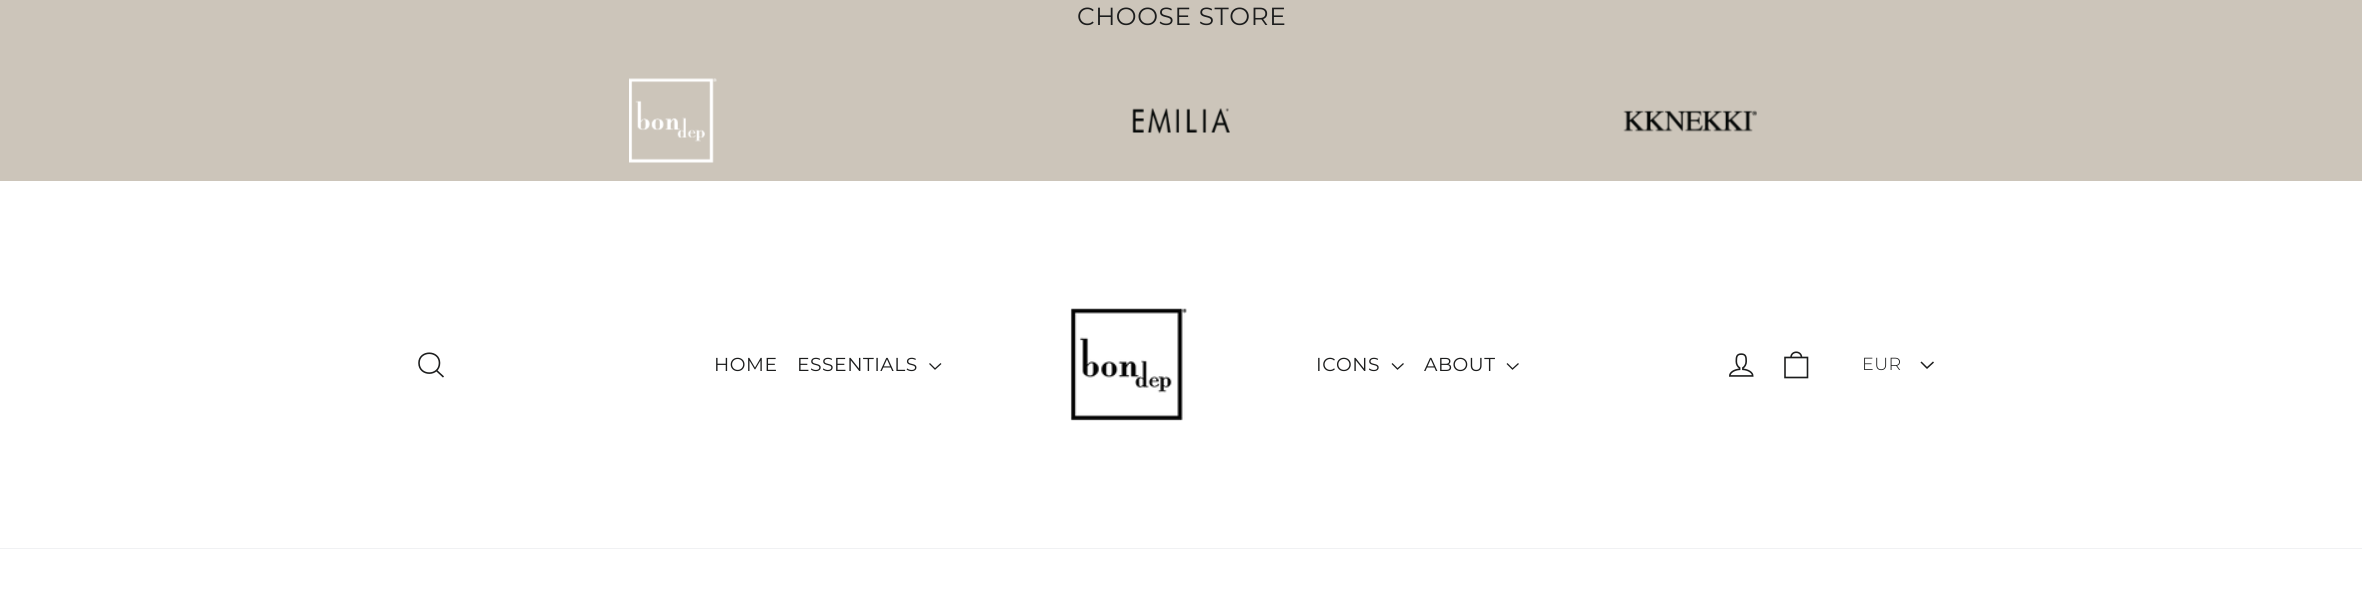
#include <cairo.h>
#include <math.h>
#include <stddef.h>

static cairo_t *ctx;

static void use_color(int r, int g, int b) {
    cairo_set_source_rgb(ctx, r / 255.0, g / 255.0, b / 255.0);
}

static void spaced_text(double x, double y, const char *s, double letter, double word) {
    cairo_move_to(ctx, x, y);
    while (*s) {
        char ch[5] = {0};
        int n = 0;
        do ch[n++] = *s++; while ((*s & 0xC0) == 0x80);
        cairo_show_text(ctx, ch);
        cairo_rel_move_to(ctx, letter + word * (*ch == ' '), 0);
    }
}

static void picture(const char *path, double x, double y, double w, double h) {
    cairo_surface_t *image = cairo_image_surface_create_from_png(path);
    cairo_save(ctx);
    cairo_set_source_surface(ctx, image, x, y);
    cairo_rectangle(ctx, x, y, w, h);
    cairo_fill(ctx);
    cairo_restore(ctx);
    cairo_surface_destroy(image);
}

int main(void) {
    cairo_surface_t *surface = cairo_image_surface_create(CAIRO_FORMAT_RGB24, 2362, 604);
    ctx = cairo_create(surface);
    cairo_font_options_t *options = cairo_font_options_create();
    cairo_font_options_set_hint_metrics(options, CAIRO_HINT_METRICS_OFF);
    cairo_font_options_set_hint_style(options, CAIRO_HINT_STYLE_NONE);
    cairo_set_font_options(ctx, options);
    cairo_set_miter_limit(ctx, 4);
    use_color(255, 255, 255);
    cairo_paint(ctx);
    use_color(204, 197, 186);
    cairo_rectangle(ctx, 0, 0, 2362, 181);
    cairo_fill(ctx);
    cairo_select_font_face(ctx, "Montserrat", CAIRO_FONT_SLANT_NORMAL, CAIRO_FONT_WEIGHT_NORMAL);
    cairo_set_font_size(ctx, 24.75);
    use_color(28, 29, 29);
    spaced_text(1077, 25, "CHOOSE STORE", 0.6, 0);
    picture("img1.png", 629, 78, 88, 85);
    picture("img2.png", 1132, 108, 98, 26);
    picture("img3.png", 1623, 110, 134, 22);
    use_color(240, 241, 243);
    cairo_rectangle(ctx, 0, 548, 2362, 1);
    cairo_fill(ctx);
    cairo_new_path(ctx);
    cairo_move_to(ctx, 439.5, 363);
    cairo_curve_to(ctx, 439.5, 376.5, 419, 376.5, 419, 363);
    cairo_curve_to(ctx, 419, 350, 439.5, 350, 439.5, 363);
    cairo_close_path(ctx);
    cairo_move_to(ctx, 443.5, 377);
    cairo_line_to(ctx, 436.5, 370.5);
    use_color(28, 29, 29);
    cairo_set_line_width(ctx, 1.6);
    cairo_stroke(ctx);
    cairo_set_font_size(ctx, 18.75);
    spaced_text(714, 371, "HOME", 0.5, 0);
    spaced_text(797, 371, "ESSENTIALS", 0.5, 0);
    cairo_new_path(ctx);
    cairo_move_to(ctx, 929.5, 363.5);
    cairo_line_to(ctx, 935, 369);
    cairo_line_to(ctx, 941, 363.5);
    cairo_set_line_width(ctx, 1.3);
    cairo_stroke(ctx);
    picture("img4.png", 1070, 308, 117, 113);
    spaced_text(1316, 371, "ICONS", 0.5, 0);
    cairo_new_path(ctx);
    cairo_move_to(ctx, 1392, 363.5);
    cairo_line_to(ctx, 1397.5, 369);
    cairo_line_to(ctx, 1403.5, 363.5);
    cairo_stroke(ctx);
    spaced_text(1424, 371, "ABOUT", 0.5, 0);
    cairo_new_path(ctx);
    cairo_move_to(ctx, 1507, 363.5);
    cairo_line_to(ctx, 1512.5, 369);
    cairo_line_to(ctx, 1518.5, 363.5);
    cairo_stroke(ctx);
    picture("img5.png", 1729, 353, 25, 24);
    cairo_new_path(ctx);
    cairo_move_to(ctx, 1785, 357.5);
    cairo_line_to(ctx, 1807.5, 357.5);
    cairo_line_to(ctx, 1807.5, 377.5);
    cairo_line_to(ctx, 1785, 377.5);
    cairo_close_path(ctx);
    cairo_move_to(ctx, 1791, 357.5);
    cairo_curve_to(ctx, 1791, 350.5, 1801.5, 350.5, 1801.5, 357.5);
    cairo_set_line_width(ctx, 1.6);
    cairo_stroke(ctx);
    cairo_select_font_face(ctx, "Montserrat Light", CAIRO_FONT_SLANT_NORMAL, CAIRO_FONT_WEIGHT_NORMAL);
    cairo_set_font_size(ctx, 17.5);
    spaced_text(1862, 370, "EUR", 0.5, 0);
    cairo_new_path(ctx);
    cairo_move_to(ctx, 1921, 362);
    cairo_line_to(ctx, 1927, 368);
    cairo_line_to(ctx, 1933.5, 362);
    cairo_set_line_width(ctx, 1.5);
    cairo_stroke(ctx);
    cairo_surface_write_to_png(surface, "result.png");
    cairo_font_options_destroy(options);
    cairo_destroy(ctx);
    cairo_surface_destroy(surface);
    return 0;
}
